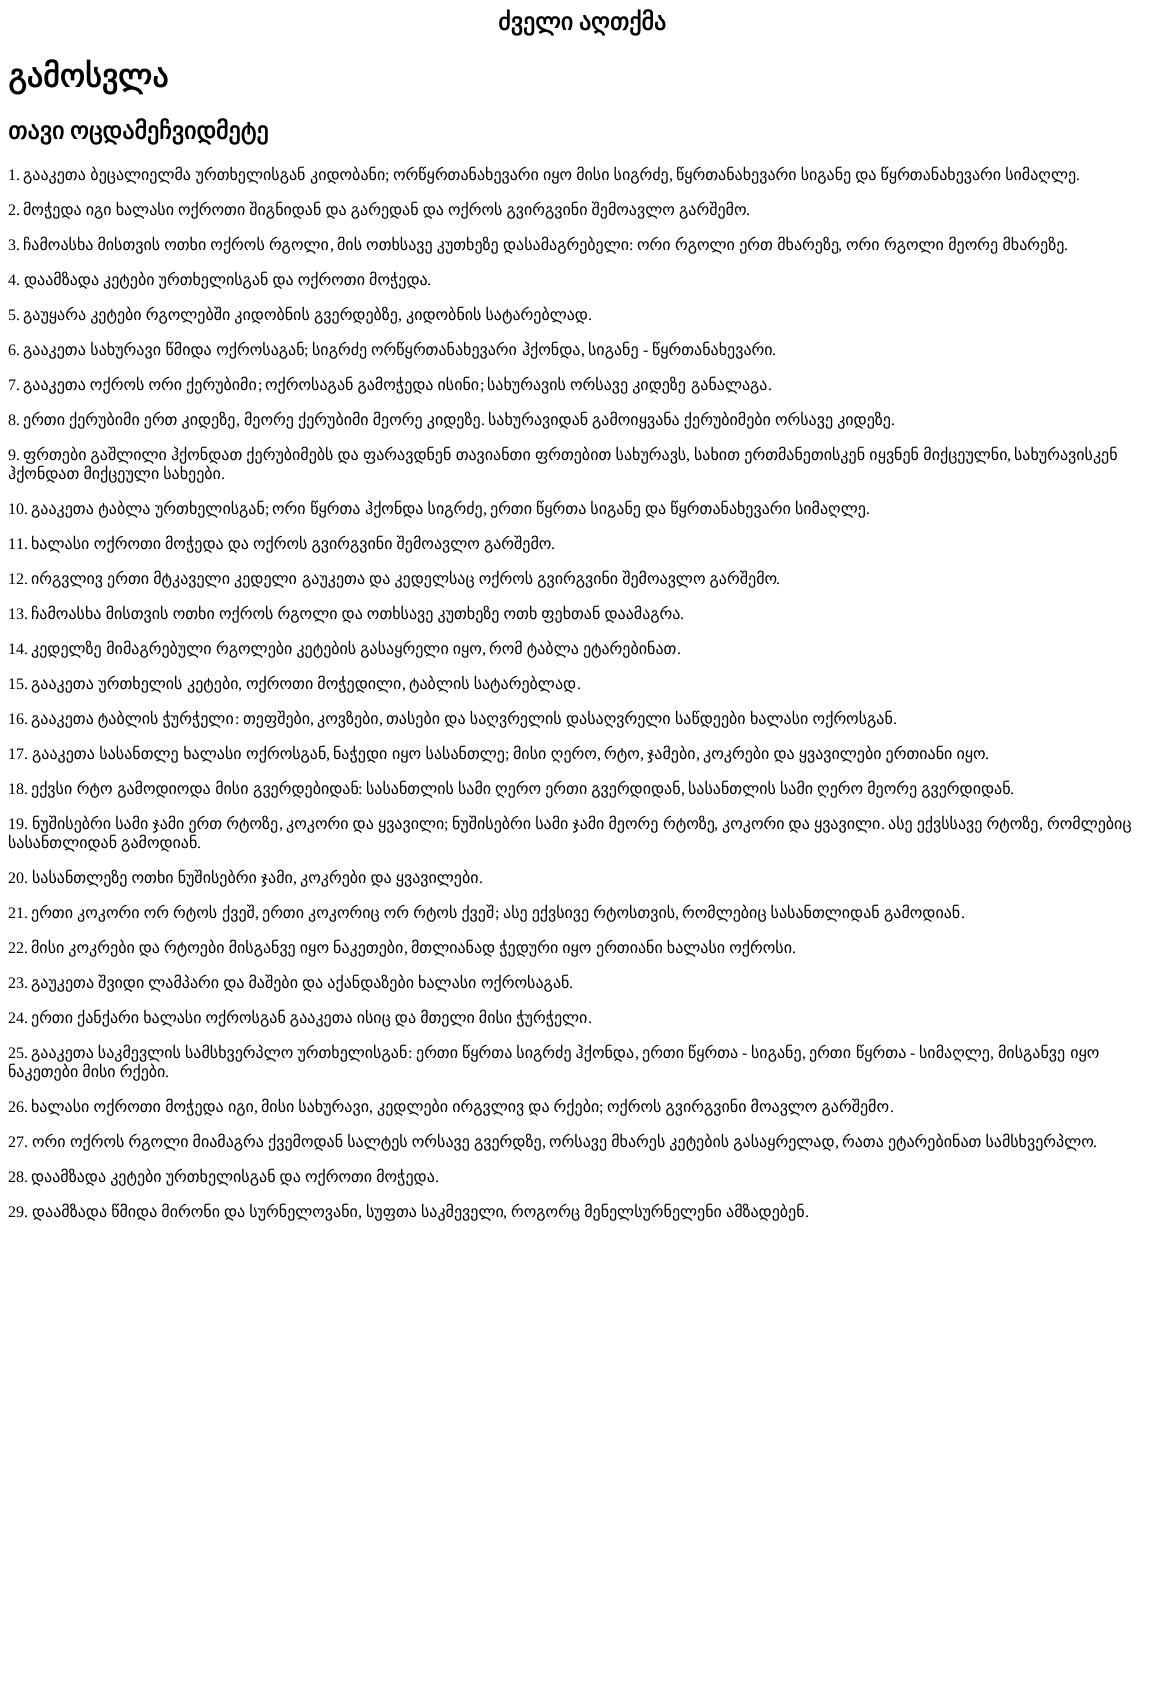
#include <cairo.h>
#include <math.h>
#include <stddef.h>

static cairo_t *ctx;

static void use_color(int r, int g, int b) {
    cairo_set_source_rgb(ctx, r / 255.0, g / 255.0, b / 255.0);
}

static void spaced_text(double x, double y, const char *s, double letter, double word) {
    cairo_move_to(ctx, x, y);
    while (*s) {
        char ch[5] = {0};
        int n = 0;
        do ch[n++] = *s++; while ((*s & 0xC0) == 0x80);
        cairo_show_text(ctx, ch);
        cairo_rel_move_to(ctx, letter + word * (*ch == ' '), 0);
    }
}

int main(void) {
    cairo_surface_t *surface = cairo_image_surface_create(CAIRO_FORMAT_RGB24, 1164, 1690);
    ctx = cairo_create(surface);
    cairo_font_options_t *options = cairo_font_options_create();
    cairo_font_options_set_hint_metrics(options, CAIRO_HINT_METRICS_OFF);
    cairo_font_options_set_hint_style(options, CAIRO_HINT_STYLE_NONE);
    cairo_set_font_options(ctx, options);
    cairo_set_miter_limit(ctx, 4);
    use_color(255, 255, 255);
    cairo_paint(ctx);
    cairo_select_font_face(ctx, "DejaVu Sans", CAIRO_FONT_SLANT_NORMAL, CAIRO_FONT_WEIGHT_BOLD);
    cairo_set_font_size(ctx, 24);
    use_color(0, 0, 0);
    spaced_text(498, 30, "ძველი აღთქმა", 0, -2);
    cairo_set_font_size(ctx, 32);
    cairo_move_to(ctx, 8, 87);
    cairo_show_text(ctx, "გამოსვლა");
    cairo_set_font_size(ctx, 24);
    spaced_text(8, 139, "თავი ოცდამეჩვიდმეტე", 0, -2);
    cairo_select_font_face(ctx, "Liberation Serif", CAIRO_FONT_SLANT_NORMAL, CAIRO_FONT_WEIGHT_NORMAL);
    cairo_set_font_size(ctx, 16);
    cairo_move_to(ctx, 8, 180);
    cairo_show_text(ctx, "1.");
    cairo_select_font_face(ctx, "DejaVu Sans", CAIRO_FONT_SLANT_NORMAL, CAIRO_FONT_WEIGHT_NORMAL);
    spaced_text(23, 180, "გააკეთა ბეცალიელმა ურთხელისგან კიდობანი", 0, -0.5);
    cairo_select_font_face(ctx, "Liberation Serif", CAIRO_FONT_SLANT_NORMAL, CAIRO_FONT_WEIGHT_NORMAL);
    cairo_move_to(ctx, 385, 180);
    cairo_show_text(ctx, ";");
    cairo_select_font_face(ctx, "DejaVu Sans", CAIRO_FONT_SLANT_NORMAL, CAIRO_FONT_WEIGHT_NORMAL);
    spaced_text(393, 180, "ორწყრთანახევარი იყო მისი სიგრძე", 0, -1);
    cairo_select_font_face(ctx, "Liberation Serif", CAIRO_FONT_SLANT_NORMAL, CAIRO_FONT_WEIGHT_NORMAL);
    cairo_move_to(ctx, 669, 180);
    cairo_show_text(ctx, ",");
    cairo_select_font_face(ctx, "DejaVu Sans", CAIRO_FONT_SLANT_NORMAL, CAIRO_FONT_WEIGHT_NORMAL);
    spaced_text(676, 180, "წყრთანახევარი სიგანე და წყრთანახევარი სიმაღლე", 0, -1);
    cairo_select_font_face(ctx, "Liberation Serif", CAIRO_FONT_SLANT_NORMAL, CAIRO_FONT_WEIGHT_NORMAL);
    cairo_move_to(ctx, 1076, 180);
    cairo_show_text(ctx, ".");
    cairo_move_to(ctx, 8, 215);
    cairo_show_text(ctx, "2.");
    cairo_select_font_face(ctx, "DejaVu Sans", CAIRO_FONT_SLANT_NORMAL, CAIRO_FONT_WEIGHT_NORMAL);
    spaced_text(23, 215, "მოჭედა იგი ხალასი ოქროთი შიგნიდან და გარედან და ოქროს გვირგვინი შემოავლო", 0, -1);
    cairo_move_to(ctx, 679, 215);
    cairo_show_text(ctx, "გარშემო");
    cairo_select_font_face(ctx, "Liberation Serif", CAIRO_FONT_SLANT_NORMAL, CAIRO_FONT_WEIGHT_NORMAL);
    cairo_move_to(ctx, 746, 215);
    cairo_show_text(ctx, ".");
    cairo_move_to(ctx, 8, 250);
    cairo_show_text(ctx, "3.");
    cairo_select_font_face(ctx, "DejaVu Sans", CAIRO_FONT_SLANT_NORMAL, CAIRO_FONT_WEIGHT_NORMAL);
    spaced_text(23, 250, "ჩამოასხა მისთვის ოთხი ოქროს რგოლი", 0, -1);
    cairo_select_font_face(ctx, "Liberation Serif", CAIRO_FONT_SLANT_NORMAL, CAIRO_FONT_WEIGHT_NORMAL);
    cairo_move_to(ctx, 330, 250);
    cairo_show_text(ctx, ",");
    cairo_select_font_face(ctx, "DejaVu Sans", CAIRO_FONT_SLANT_NORMAL, CAIRO_FONT_WEIGHT_NORMAL);
    spaced_text(337, 250, "მის ოთხსავე კუთხეზე", 0, -1);
    cairo_move_to(ctx, 503, 250);
    cairo_show_text(ctx, "დასამაგრებელი");
    cairo_select_font_face(ctx, "Liberation Serif", CAIRO_FONT_SLANT_NORMAL, CAIRO_FONT_WEIGHT_NORMAL);
    cairo_move_to(ctx, 629, 250);
    cairo_show_text(ctx, ":");
    cairo_select_font_face(ctx, "DejaVu Sans", CAIRO_FONT_SLANT_NORMAL, CAIRO_FONT_WEIGHT_NORMAL);
    spaced_text(637, 250, "ორი რგოლი ერთ მხარეზე", 0, -0.75);
    cairo_select_font_face(ctx, "Liberation Serif", CAIRO_FONT_SLANT_NORMAL, CAIRO_FONT_WEIGHT_NORMAL);
    cairo_move_to(ctx, 838, 250);
    cairo_show_text(ctx, ",");
    cairo_select_font_face(ctx, "DejaVu Sans", CAIRO_FONT_SLANT_NORMAL, CAIRO_FONT_WEIGHT_NORMAL);
    spaced_text(846, 250, "ორი რგოლი მეორე მხარეზე", 0, -0.75);
    cairo_select_font_face(ctx, "Liberation Serif", CAIRO_FONT_SLANT_NORMAL, CAIRO_FONT_WEIGHT_NORMAL);
    cairo_move_to(ctx, 1064, 250);
    cairo_show_text(ctx, ".");
    cairo_move_to(ctx, 8, 285);
    cairo_show_text(ctx, "4.");
    cairo_select_font_face(ctx, "DejaVu Sans", CAIRO_FONT_SLANT_NORMAL, CAIRO_FONT_WEIGHT_NORMAL);
    cairo_move_to(ctx, 24, 285);
    cairo_show_text(ctx, "დაამზადა");
    spaced_text(103, 285, "კეტები ურთხელისგან და ოქროთი მოჭედა", 0, -1);
    cairo_select_font_face(ctx, "Liberation Serif", CAIRO_FONT_SLANT_NORMAL, CAIRO_FONT_WEIGHT_NORMAL);
    cairo_move_to(ctx, 427, 285);
    cairo_show_text(ctx, ".");
    cairo_move_to(ctx, 8, 320);
    cairo_show_text(ctx, "5.");
    cairo_select_font_face(ctx, "DejaVu Sans", CAIRO_FONT_SLANT_NORMAL, CAIRO_FONT_WEIGHT_NORMAL);
    spaced_text(23, 320, "გაუყარა კეტები რგოლებში კიდობნის", 0, -1);
    cairo_move_to(ctx, 314, 320);
    cairo_show_text(ctx, "გვერდებზე");
    cairo_select_font_face(ctx, "Liberation Serif", CAIRO_FONT_SLANT_NORMAL, CAIRO_FONT_WEIGHT_NORMAL);
    cairo_move_to(ctx, 398, 320);
    cairo_show_text(ctx, ",");
    cairo_select_font_face(ctx, "DejaVu Sans", CAIRO_FONT_SLANT_NORMAL, CAIRO_FONT_WEIGHT_NORMAL);
    spaced_text(406, 320, "კიდობნის სატარებლად", 0, -1);
    cairo_select_font_face(ctx, "Liberation Serif", CAIRO_FONT_SLANT_NORMAL, CAIRO_FONT_WEIGHT_NORMAL);
    cairo_move_to(ctx, 588, 320);
    cairo_show_text(ctx, ".");
    cairo_move_to(ctx, 8, 355);
    cairo_show_text(ctx, "6.");
    cairo_select_font_face(ctx, "DejaVu Sans", CAIRO_FONT_SLANT_NORMAL, CAIRO_FONT_WEIGHT_NORMAL);
    spaced_text(23, 355, "გააკეთა სახურავი წმიდა ოქროსაგან", 0, -0.5);
    cairo_select_font_face(ctx, "Liberation Serif", CAIRO_FONT_SLANT_NORMAL, CAIRO_FONT_WEIGHT_NORMAL);
    cairo_move_to(ctx, 304, 355);
    cairo_show_text(ctx, ";");
    cairo_select_font_face(ctx, "DejaVu Sans", CAIRO_FONT_SLANT_NORMAL, CAIRO_FONT_WEIGHT_NORMAL);
    cairo_move_to(ctx, 312, 355);
    cairo_show_text(ctx, "სიგრძე");
    cairo_move_to(ctx, 371, 355);
    cairo_show_text(ctx, "ორწყრთანახევარი ჰქონდა");
    cairo_move_to(ctx, 588, 355);
    cairo_show_text(ctx, "სიგანე");
    cairo_select_font_face(ctx, "Liberation Serif", CAIRO_FONT_SLANT_NORMAL, CAIRO_FONT_WEIGHT_NORMAL);
    cairo_move_to(ctx, 643, 355);
    cairo_show_text(ctx, "-");
    cairo_select_font_face(ctx, "DejaVu Sans", CAIRO_FONT_SLANT_NORMAL, CAIRO_FONT_WEIGHT_NORMAL);
    cairo_move_to(ctx, 652, 355);
    cairo_show_text(ctx, "წყრთანახევარი");
    cairo_select_font_face(ctx, "Liberation Serif", CAIRO_FONT_SLANT_NORMAL, CAIRO_FONT_WEIGHT_NORMAL);
    cairo_move_to(ctx, 581, 355);
    cairo_show_text(ctx, ",");
    cairo_move_to(ctx, 772, 355);
    cairo_show_text(ctx, ".");
    cairo_move_to(ctx, 8, 390);
    cairo_show_text(ctx, "7.");
    cairo_select_font_face(ctx, "DejaVu Sans", CAIRO_FONT_SLANT_NORMAL, CAIRO_FONT_WEIGHT_NORMAL);
    spaced_text(23, 390, "გააკეთა ოქროს ორი ქერუბიმი", 0, -1);
    cairo_select_font_face(ctx, "Liberation Serif", CAIRO_FONT_SLANT_NORMAL, CAIRO_FONT_WEIGHT_NORMAL);
    cairo_move_to(ctx, 258, 390);
    cairo_show_text(ctx, ";");
    cairo_select_font_face(ctx, "DejaVu Sans", CAIRO_FONT_SLANT_NORMAL, CAIRO_FONT_WEIGHT_NORMAL);
    spaced_text(265, 390, "ოქროსაგან გამოჭედა ისინი", 0, -1);
    cairo_select_font_face(ctx, "Liberation Serif", CAIRO_FONT_SLANT_NORMAL, CAIRO_FONT_WEIGHT_NORMAL);
    cairo_move_to(ctx, 480, 390);
    cairo_show_text(ctx, ";");
    cairo_select_font_face(ctx, "DejaVu Sans", CAIRO_FONT_SLANT_NORMAL, CAIRO_FONT_WEIGHT_NORMAL);
    spaced_text(487, 390, "სახურავის ორსავე კიდეზე", 0, -1);
    cairo_move_to(ctx, 691, 390);
    cairo_show_text(ctx, "განალაგა");
    cairo_select_font_face(ctx, "Liberation Serif", CAIRO_FONT_SLANT_NORMAL, CAIRO_FONT_WEIGHT_NORMAL);
    cairo_move_to(ctx, 768, 390);
    cairo_show_text(ctx, ".");
    cairo_move_to(ctx, 8, 425);
    cairo_show_text(ctx, "8.");
    cairo_select_font_face(ctx, "DejaVu Sans", CAIRO_FONT_SLANT_NORMAL, CAIRO_FONT_WEIGHT_NORMAL);
    spaced_text(23, 425, "ერთი ქერუბიმი ერთ კიდეზე", 0, -1);
    cairo_select_font_face(ctx, "Liberation Serif", CAIRO_FONT_SLANT_NORMAL, CAIRO_FONT_WEIGHT_NORMAL);
    cairo_move_to(ctx, 236, 425);
    cairo_show_text(ctx, ",");
    cairo_select_font_face(ctx, "DejaVu Sans", CAIRO_FONT_SLANT_NORMAL, CAIRO_FONT_WEIGHT_NORMAL);
    spaced_text(244, 425, "მეორე ქერუბიმი მეორე კიდეზე", 0, -1);
    cairo_select_font_face(ctx, "Liberation Serif", CAIRO_FONT_SLANT_NORMAL, CAIRO_FONT_WEIGHT_NORMAL);
    cairo_move_to(ctx, 481, 425);
    cairo_show_text(ctx, ".");
    cairo_select_font_face(ctx, "DejaVu Sans", CAIRO_FONT_SLANT_NORMAL, CAIRO_FONT_WEIGHT_NORMAL);
    cairo_move_to(ctx, 488, 425);
    cairo_show_text(ctx, "სახურავიდან");
    spaced_text(592, 425, "გამოიყვანა ქერუბიმები ორსავე კიდეზე", 0, -1);
    cairo_select_font_face(ctx, "Liberation Serif", CAIRO_FONT_SLANT_NORMAL, CAIRO_FONT_WEIGHT_NORMAL);
    cairo_move_to(ctx, 891, 425);
    cairo_show_text(ctx, ".");
    cairo_move_to(ctx, 8, 460);
    cairo_show_text(ctx, "9.");
    cairo_select_font_face(ctx, "DejaVu Sans", CAIRO_FONT_SLANT_NORMAL, CAIRO_FONT_WEIGHT_NORMAL);
    spaced_text(23, 460, "ფრთები გაშლილი ჰქონდათ ქერუბიმებს და", 0, -1);
    spaced_text(363, 460, "ფარავდნენ თავიანთი ფრთებით სახურავს", 0, -0.75);
    cairo_select_font_face(ctx, "Liberation Serif", CAIRO_FONT_SLANT_NORMAL, CAIRO_FONT_WEIGHT_NORMAL);
    cairo_move_to(ctx, 686, 460);
    cairo_show_text(ctx, ",");
    cairo_select_font_face(ctx, "DejaVu Sans", CAIRO_FONT_SLANT_NORMAL, CAIRO_FONT_WEIGHT_NORMAL);
    spaced_text(694, 460, "სახით ერთმანეთისკენ იყვნენ მიქცეულნი", 0, -0.75);
    cairo_select_font_face(ctx, "Liberation Serif", CAIRO_FONT_SLANT_NORMAL, CAIRO_FONT_WEIGHT_NORMAL);
    cairo_move_to(ctx, 1007, 460);
    cairo_show_text(ctx, ",");
    cairo_select_font_face(ctx, "DejaVu Sans", CAIRO_FONT_SLANT_NORMAL, CAIRO_FONT_WEIGHT_NORMAL);
    cairo_move_to(ctx, 1014, 460);
    cairo_show_text(ctx, "სახურავისკენ");
    spaced_text(8, 479, "ჰქონდათ მიქცეული სახეები", 0, -1);
    cairo_select_font_face(ctx, "Liberation Serif", CAIRO_FONT_SLANT_NORMAL, CAIRO_FONT_WEIGHT_NORMAL);
    cairo_move_to(ctx, 221, 479);
    cairo_show_text(ctx, ".");
    cairo_move_to(ctx, 8, 514);
    cairo_show_text(ctx, "10.");
    cairo_select_font_face(ctx, "DejaVu Sans", CAIRO_FONT_SLANT_NORMAL, CAIRO_FONT_WEIGHT_NORMAL);
    spaced_text(31, 514, "გააკეთა ტაბლა ურთხელისგან", 0, -0.5);
    cairo_select_font_face(ctx, "Liberation Serif", CAIRO_FONT_SLANT_NORMAL, CAIRO_FONT_WEIGHT_NORMAL);
    cairo_move_to(ctx, 265, 514);
    cairo_show_text(ctx, ";");
    cairo_select_font_face(ctx, "DejaVu Sans", CAIRO_FONT_SLANT_NORMAL, CAIRO_FONT_WEIGHT_NORMAL);
    spaced_text(272, 514, "ორი წყრთა", 0, -0.5);
    spaced_text(365, 514, "ჰქონდა სიგრძე", 0, -1);
    cairo_select_font_face(ctx, "Liberation Serif", CAIRO_FONT_SLANT_NORMAL, CAIRO_FONT_WEIGHT_NORMAL);
    cairo_move_to(ctx, 483, 514);
    cairo_show_text(ctx, ",");
    cairo_select_font_face(ctx, "DejaVu Sans", CAIRO_FONT_SLANT_NORMAL, CAIRO_FONT_WEIGHT_NORMAL);
    spaced_text(490, 514, "ერთი წყრთა სიგანე და წყრთანახევარი სიმაღლე", 0, -1);
    cairo_select_font_face(ctx, "Liberation Serif", CAIRO_FONT_SLANT_NORMAL, CAIRO_FONT_WEIGHT_NORMAL);
    cairo_move_to(ctx, 866, 514);
    cairo_show_text(ctx, ".");
    cairo_move_to(ctx, 8, 549);
    cairo_show_text(ctx, "11.");
    cairo_select_font_face(ctx, "DejaVu Sans", CAIRO_FONT_SLANT_NORMAL, CAIRO_FONT_WEIGHT_NORMAL);
    spaced_text(31, 549, "ხალასი ოქროთი", 0, -0.5);
    spaced_text(165, 549, "მოჭედა და ოქროს გვირგვინი შემოავლო გარშემო", 0, -1);
    cairo_select_font_face(ctx, "Liberation Serif", CAIRO_FONT_SLANT_NORMAL, CAIRO_FONT_WEIGHT_NORMAL);
    cairo_move_to(ctx, 551, 549);
    cairo_show_text(ctx, ".");
    cairo_move_to(ctx, 8, 584);
    cairo_show_text(ctx, "12.");
    cairo_select_font_face(ctx, "DejaVu Sans", CAIRO_FONT_SLANT_NORMAL, CAIRO_FONT_WEIGHT_NORMAL);
    spaced_text(31, 584, "ირგვლივ ერთი მტკაველი კედელი", 0, -1);
    spaced_text(302, 584, "გაუკეთა და კედელსაც ოქროს გვირგვინი შემოავლო გარშემო", 0, -1);
    cairo_select_font_face(ctx, "Liberation Serif", CAIRO_FONT_SLANT_NORMAL, CAIRO_FONT_WEIGHT_NORMAL);
    cairo_move_to(ctx, 776, 584);
    cairo_show_text(ctx, ".");
    cairo_move_to(ctx, 8, 619);
    cairo_show_text(ctx, "13.");
    cairo_select_font_face(ctx, "DejaVu Sans", CAIRO_FONT_SLANT_NORMAL, CAIRO_FONT_WEIGHT_NORMAL);
    spaced_text(31, 619, "ჩამოასხა მისთვის ოთხი", 0, -0.75);
    spaced_text(219, 619, "ოქროს რგოლი და ოთხსავე კუთხეზე ოთხ ფეხთან დაამაგრა", 0, -1);
    cairo_select_font_face(ctx, "Liberation Serif", CAIRO_FONT_SLANT_NORMAL, CAIRO_FONT_WEIGHT_NORMAL);
    cairo_move_to(ctx, 680, 619);
    cairo_show_text(ctx, ".");
    cairo_move_to(ctx, 8, 654);
    cairo_show_text(ctx, "14.");
    cairo_select_font_face(ctx, "DejaVu Sans", CAIRO_FONT_SLANT_NORMAL, CAIRO_FONT_WEIGHT_NORMAL);
    spaced_text(31, 654, "კედელზე მიმაგრებული", 0, -0.5);
    spaced_text(216, 654, "რგოლები კეტების გასაყრელი იყო", 0, -1);
    cairo_select_font_face(ctx, "Liberation Serif", CAIRO_FONT_SLANT_NORMAL, CAIRO_FONT_WEIGHT_NORMAL);
    cairo_move_to(ctx, 482, 654);
    cairo_show_text(ctx, ",");
    cairo_select_font_face(ctx, "DejaVu Sans", CAIRO_FONT_SLANT_NORMAL, CAIRO_FONT_WEIGHT_NORMAL);
    spaced_text(489, 654, "რომ ტაბლა ეტარებინათ", 0, -1);
    cairo_select_font_face(ctx, "Liberation Serif", CAIRO_FONT_SLANT_NORMAL, CAIRO_FONT_WEIGHT_NORMAL);
    cairo_move_to(ctx, 677, 654);
    cairo_show_text(ctx, ".");
    cairo_move_to(ctx, 8, 689);
    cairo_show_text(ctx, "15.");
    cairo_select_font_face(ctx, "DejaVu Sans", CAIRO_FONT_SLANT_NORMAL, CAIRO_FONT_WEIGHT_NORMAL);
    spaced_text(31, 689, "გააკეთა ურთხელის", 0, -0.5);
    cairo_move_to(ctx, 187, 689);
    cairo_show_text(ctx, "კეტები");
    cairo_select_font_face(ctx, "Liberation Serif", CAIRO_FONT_SLANT_NORMAL, CAIRO_FONT_WEIGHT_NORMAL);
    cairo_move_to(ctx, 238, 689);
    cairo_show_text(ctx, ",");
    cairo_select_font_face(ctx, "DejaVu Sans", CAIRO_FONT_SLANT_NORMAL, CAIRO_FONT_WEIGHT_NORMAL);
    spaced_text(246, 689, "ოქროთი მოჭედილი", 0, -1);
    cairo_select_font_face(ctx, "Liberation Serif", CAIRO_FONT_SLANT_NORMAL, CAIRO_FONT_WEIGHT_NORMAL);
    cairo_move_to(ctx, 402, 689);
    cairo_show_text(ctx, ",");
    cairo_select_font_face(ctx, "DejaVu Sans", CAIRO_FONT_SLANT_NORMAL, CAIRO_FONT_WEIGHT_NORMAL);
    spaced_text(409, 689, "ტაბლის სატარებლად", 0, -1);
    cairo_select_font_face(ctx, "Liberation Serif", CAIRO_FONT_SLANT_NORMAL, CAIRO_FONT_WEIGHT_NORMAL);
    cairo_move_to(ctx, 577, 689);
    cairo_show_text(ctx, ".");
    cairo_move_to(ctx, 8, 724);
    cairo_show_text(ctx, "16.");
    cairo_select_font_face(ctx, "DejaVu Sans", CAIRO_FONT_SLANT_NORMAL, CAIRO_FONT_WEIGHT_NORMAL);
    spaced_text(31, 724, "გააკეთა ტაბლის ჭურჭელი", 0, -1);
    cairo_select_font_face(ctx, "Liberation Serif", CAIRO_FONT_SLANT_NORMAL, CAIRO_FONT_WEIGHT_NORMAL);
    cairo_move_to(ctx, 235, 724);
    cairo_show_text(ctx, ":");
    cairo_select_font_face(ctx, "DejaVu Sans", CAIRO_FONT_SLANT_NORMAL, CAIRO_FONT_WEIGHT_NORMAL);
    cairo_move_to(ctx, 243, 724);
    cairo_show_text(ctx, "თეფშები");
    cairo_select_font_face(ctx, "Liberation Serif", CAIRO_FONT_SLANT_NORMAL, CAIRO_FONT_WEIGHT_NORMAL);
    cairo_move_to(ctx, 310, 724);
    cairo_show_text(ctx, ",");
    cairo_select_font_face(ctx, "DejaVu Sans", CAIRO_FONT_SLANT_NORMAL, CAIRO_FONT_WEIGHT_NORMAL);
    cairo_move_to(ctx, 317, 724);
    cairo_show_text(ctx, "კოვზები");
    cairo_select_font_face(ctx, "Liberation Serif", CAIRO_FONT_SLANT_NORMAL, CAIRO_FONT_WEIGHT_NORMAL);
    cairo_move_to(ctx, 379, 724);
    cairo_show_text(ctx, ",");
    cairo_select_font_face(ctx, "DejaVu Sans", CAIRO_FONT_SLANT_NORMAL, CAIRO_FONT_WEIGHT_NORMAL);
    spaced_text(386, 724, "თასები და საღვრელის დასაღვრელი საწდეები ხალასი ოქროსგან", 0, -0.75);
    cairo_select_font_face(ctx, "Liberation Serif", CAIRO_FONT_SLANT_NORMAL, CAIRO_FONT_WEIGHT_NORMAL);
    cairo_move_to(ctx, 893, 724);
    cairo_show_text(ctx, ".");
    cairo_move_to(ctx, 8, 759);
    cairo_show_text(ctx, "17.");
    cairo_select_font_face(ctx, "DejaVu Sans", CAIRO_FONT_SLANT_NORMAL, CAIRO_FONT_WEIGHT_NORMAL);
    spaced_text(32, 759, "გააკეთა სასანთლე ხალასი ოქროსგან", 0, -0.5);
    cairo_select_font_face(ctx, "Liberation Serif", CAIRO_FONT_SLANT_NORMAL, CAIRO_FONT_WEIGHT_NORMAL);
    cairo_move_to(ctx, 326, 759);
    cairo_show_text(ctx, ",");
    cairo_select_font_face(ctx, "DejaVu Sans", CAIRO_FONT_SLANT_NORMAL, CAIRO_FONT_WEIGHT_NORMAL);
    spaced_text(333, 759, "ნაჭედი იყო სასანთლე", 0, -0.5);
    cairo_select_font_face(ctx, "Liberation Serif", CAIRO_FONT_SLANT_NORMAL, CAIRO_FONT_WEIGHT_NORMAL);
    cairo_move_to(ctx, 505, 759);
    cairo_show_text(ctx, ";");
    cairo_select_font_face(ctx, "DejaVu Sans", CAIRO_FONT_SLANT_NORMAL, CAIRO_FONT_WEIGHT_NORMAL);
    spaced_text(513, 759, "მისი ღერო", 0, -0.5);
    cairo_select_font_face(ctx, "Liberation Serif", CAIRO_FONT_SLANT_NORMAL, CAIRO_FONT_WEIGHT_NORMAL);
    cairo_move_to(ctx, 597, 759);
    cairo_show_text(ctx, ",");
    cairo_select_font_face(ctx, "DejaVu Sans", CAIRO_FONT_SLANT_NORMAL, CAIRO_FONT_WEIGHT_NORMAL);
    cairo_move_to(ctx, 604, 759);
    cairo_show_text(ctx, "რტო");
    cairo_select_font_face(ctx, "Liberation Serif", CAIRO_FONT_SLANT_NORMAL, CAIRO_FONT_WEIGHT_NORMAL);
    cairo_move_to(ctx, 640, 759);
    cairo_show_text(ctx, ",");
    cairo_select_font_face(ctx, "DejaVu Sans", CAIRO_FONT_SLANT_NORMAL, CAIRO_FONT_WEIGHT_NORMAL);
    cairo_move_to(ctx, 647, 759);
    cairo_show_text(ctx, "ჯამები");
    cairo_select_font_face(ctx, "Liberation Serif", CAIRO_FONT_SLANT_NORMAL, CAIRO_FONT_WEIGHT_NORMAL);
    cairo_move_to(ctx, 696, 759);
    cairo_show_text(ctx, ",");
    cairo_select_font_face(ctx, "DejaVu Sans", CAIRO_FONT_SLANT_NORMAL, CAIRO_FONT_WEIGHT_NORMAL);
    spaced_text(703, 759, "კოკრები და ყვავილები ერთიანი იყო", 0, -1);
    cairo_select_font_face(ctx, "Liberation Serif", CAIRO_FONT_SLANT_NORMAL, CAIRO_FONT_WEIGHT_NORMAL);
    cairo_move_to(ctx, 985, 759);
    cairo_show_text(ctx, ".");
    cairo_move_to(ctx, 8, 794);
    cairo_show_text(ctx, "18.");
    cairo_select_font_face(ctx, "DejaVu Sans", CAIRO_FONT_SLANT_NORMAL, CAIRO_FONT_WEIGHT_NORMAL);
    spaced_text(31, 794, "ექვსი რტო გამოდიოდა მისი გვერდებიდან", 0, -0.5);
    cairo_select_font_face(ctx, "Liberation Serif", CAIRO_FONT_SLANT_NORMAL, CAIRO_FONT_WEIGHT_NORMAL);
    cairo_move_to(ctx, 358, 794);
    cairo_show_text(ctx, ":");
    cairo_select_font_face(ctx, "DejaVu Sans", CAIRO_FONT_SLANT_NORMAL, CAIRO_FONT_WEIGHT_NORMAL);
    spaced_text(366, 794, "სასანთლის სამი ღერო ერთი გვერდიდან", 0, -1);
    cairo_select_font_face(ctx, "Liberation Serif", CAIRO_FONT_SLANT_NORMAL, CAIRO_FONT_WEIGHT_NORMAL);
    cairo_move_to(ctx, 681, 794);
    cairo_show_text(ctx, ",");
    cairo_select_font_face(ctx, "DejaVu Sans", CAIRO_FONT_SLANT_NORMAL, CAIRO_FONT_WEIGHT_NORMAL);
    spaced_text(688, 794, "სასანთლის სამი ღერო მეორე გვერდიდან", 0, -1);
    cairo_select_font_face(ctx, "Liberation Serif", CAIRO_FONT_SLANT_NORMAL, CAIRO_FONT_WEIGHT_NORMAL);
    cairo_move_to(ctx, 1010, 794);
    cairo_show_text(ctx, ".");
    cairo_move_to(ctx, 8, 829);
    cairo_show_text(ctx, "19.");
    cairo_select_font_face(ctx, "DejaVu Sans", CAIRO_FONT_SLANT_NORMAL, CAIRO_FONT_WEIGHT_NORMAL);
    spaced_text(32, 829, "ნუშისებრი სამი ჯამი ერთ რტოზე", 0, -1);
    cairo_select_font_face(ctx, "Liberation Serif", CAIRO_FONT_SLANT_NORMAL, CAIRO_FONT_WEIGHT_NORMAL);
    cairo_move_to(ctx, 279, 829);
    cairo_show_text(ctx, ",");
    cairo_select_font_face(ctx, "DejaVu Sans", CAIRO_FONT_SLANT_NORMAL, CAIRO_FONT_WEIGHT_NORMAL);
    spaced_text(286, 829, "კოკორი და ყვავილი", 0, -1);
    cairo_select_font_face(ctx, "Liberation Serif", CAIRO_FONT_SLANT_NORMAL, CAIRO_FONT_WEIGHT_NORMAL);
    cairo_move_to(ctx, 444, 829);
    cairo_show_text(ctx, ";");
    cairo_select_font_face(ctx, "DejaVu Sans", CAIRO_FONT_SLANT_NORMAL, CAIRO_FONT_WEIGHT_NORMAL);
    spaced_text(452, 829, "ნუშისებრი სამი ჯამი მეორე", 0, -1);
    cairo_move_to(ctx, 663, 829);
    cairo_show_text(ctx, "რტოზე");
    cairo_select_font_face(ctx, "Liberation Serif", CAIRO_FONT_SLANT_NORMAL, CAIRO_FONT_WEIGHT_NORMAL);
    cairo_move_to(ctx, 714, 829);
    cairo_show_text(ctx, ",");
    cairo_select_font_face(ctx, "DejaVu Sans", CAIRO_FONT_SLANT_NORMAL, CAIRO_FONT_WEIGHT_NORMAL);
    spaced_text(722, 829, "კოკორი და ყვავილი", 0, -1);
    cairo_select_font_face(ctx, "Liberation Serif", CAIRO_FONT_SLANT_NORMAL, CAIRO_FONT_WEIGHT_NORMAL);
    cairo_move_to(ctx, 881, 829);
    cairo_show_text(ctx, ".");
    cairo_select_font_face(ctx, "DejaVu Sans", CAIRO_FONT_SLANT_NORMAL, CAIRO_FONT_WEIGHT_NORMAL);
    spaced_text(888, 829, "ასე ექვსსავე რტოზე", 0, -1);
    cairo_select_font_face(ctx, "Liberation Serif", CAIRO_FONT_SLANT_NORMAL, CAIRO_FONT_WEIGHT_NORMAL);
    cairo_move_to(ctx, 1039, 829);
    cairo_show_text(ctx, ",");
    cairo_select_font_face(ctx, "DejaVu Sans", CAIRO_FONT_SLANT_NORMAL, CAIRO_FONT_WEIGHT_NORMAL);
    cairo_move_to(ctx, 1047, 829);
    cairo_show_text(ctx, "რომლებიც");
    spaced_text(8, 848, "სასანთლიდან გამოდიან", 0, -1);
    cairo_select_font_face(ctx, "Liberation Serif", CAIRO_FONT_SLANT_NORMAL, CAIRO_FONT_WEIGHT_NORMAL);
    cairo_move_to(ctx, 197, 848);
    cairo_show_text(ctx, ".");
    cairo_move_to(ctx, 8, 883);
    cairo_show_text(ctx, "20.");
    cairo_select_font_face(ctx, "DejaVu Sans", CAIRO_FONT_SLANT_NORMAL, CAIRO_FONT_WEIGHT_NORMAL);
    spaced_text(32, 883, "სასანთლეზე ოთხი ნუშისებრი ჯამი", 0, -1);
    cairo_select_font_face(ctx, "Liberation Serif", CAIRO_FONT_SLANT_NORMAL, CAIRO_FONT_WEIGHT_NORMAL);
    cairo_move_to(ctx, 293, 883);
    cairo_show_text(ctx, ",");
    cairo_select_font_face(ctx, "DejaVu Sans", CAIRO_FONT_SLANT_NORMAL, CAIRO_FONT_WEIGHT_NORMAL);
    spaced_text(300, 883, "კოკრები და ყვავილები", 0, -1);
    cairo_select_font_face(ctx, "Liberation Serif", CAIRO_FONT_SLANT_NORMAL, CAIRO_FONT_WEIGHT_NORMAL);
    cairo_move_to(ctx, 479, 883);
    cairo_show_text(ctx, ".");
    cairo_move_to(ctx, 8, 918);
    cairo_show_text(ctx, "21.");
    cairo_select_font_face(ctx, "DejaVu Sans", CAIRO_FONT_SLANT_NORMAL, CAIRO_FONT_WEIGHT_NORMAL);
    spaced_text(31, 918, "ერთი კოკორი ორ რტოს", 0, -1);
    cairo_move_to(ctx, 222, 918);
    cairo_show_text(ctx, "ქვეშ");
    cairo_select_font_face(ctx, "Liberation Serif", CAIRO_FONT_SLANT_NORMAL, CAIRO_FONT_WEIGHT_NORMAL);
    cairo_move_to(ctx, 255, 918);
    cairo_show_text(ctx, ",");
    cairo_select_font_face(ctx, "DejaVu Sans", CAIRO_FONT_SLANT_NORMAL, CAIRO_FONT_WEIGHT_NORMAL);
    spaced_text(262, 918, "ერთი კოკორიც ორ რტოს ქვეშ", 0, -1);
    cairo_select_font_face(ctx, "Liberation Serif", CAIRO_FONT_SLANT_NORMAL, CAIRO_FONT_WEIGHT_NORMAL);
    cairo_move_to(ctx, 495, 918);
    cairo_show_text(ctx, ";");
    cairo_select_font_face(ctx, "DejaVu Sans", CAIRO_FONT_SLANT_NORMAL, CAIRO_FONT_WEIGHT_NORMAL);
    spaced_text(503, 918, "ასე ექვსივე რტოსთვის", 0, -1);
    cairo_select_font_face(ctx, "Liberation Serif", CAIRO_FONT_SLANT_NORMAL, CAIRO_FONT_WEIGHT_NORMAL);
    cairo_move_to(ctx, 675, 918);
    cairo_show_text(ctx, ",");
    cairo_select_font_face(ctx, "DejaVu Sans", CAIRO_FONT_SLANT_NORMAL, CAIRO_FONT_WEIGHT_NORMAL);
    spaced_text(682, 918, "რომლებიც სასანთლიდან", 0, -1);
    cairo_move_to(ctx, 884, 918);
    cairo_show_text(ctx, "გამოდიან");
    cairo_select_font_face(ctx, "Liberation Serif", CAIRO_FONT_SLANT_NORMAL, CAIRO_FONT_WEIGHT_NORMAL);
    cairo_move_to(ctx, 961, 918);
    cairo_show_text(ctx, ".");
    cairo_move_to(ctx, 8, 953);
    cairo_show_text(ctx, "22.");
    cairo_select_font_face(ctx, "DejaVu Sans", CAIRO_FONT_SLANT_NORMAL, CAIRO_FONT_WEIGHT_NORMAL);
    spaced_text(31, 953, "მისი კოკრები და რტოები მისგანვე იყო ნაკეთები", 0, -1);
    cairo_select_font_face(ctx, "Liberation Serif", CAIRO_FONT_SLANT_NORMAL, CAIRO_FONT_WEIGHT_NORMAL);
    cairo_move_to(ctx, 404, 953);
    cairo_show_text(ctx, ",");
    cairo_select_font_face(ctx, "DejaVu Sans", CAIRO_FONT_SLANT_NORMAL, CAIRO_FONT_WEIGHT_NORMAL);
    spaced_text(411, 953, "მთლიანად ჭედური იყო", 0, -1);
    spaced_text(596, 953, "ერთიანი ხალასი ოქროსი", 0, -1);
    cairo_select_font_face(ctx, "Liberation Serif", CAIRO_FONT_SLANT_NORMAL, CAIRO_FONT_WEIGHT_NORMAL);
    cairo_move_to(ctx, 792, 953);
    cairo_show_text(ctx, ".");
    cairo_move_to(ctx, 8, 988);
    cairo_show_text(ctx, "23.");
    cairo_select_font_face(ctx, "DejaVu Sans", CAIRO_FONT_SLANT_NORMAL, CAIRO_FONT_WEIGHT_NORMAL);
    spaced_text(31, 988, "გაუკეთა შვიდი ლამპარი და მაშები და აქანდაზები ხალასი", 0, -1);
    cairo_move_to(ctx, 481, 988);
    cairo_show_text(ctx, "ოქროსაგან");
    cairo_select_font_face(ctx, "Liberation Serif", CAIRO_FONT_SLANT_NORMAL, CAIRO_FONT_WEIGHT_NORMAL);
    cairo_move_to(ctx, 569, 988);
    cairo_show_text(ctx, ".");
    cairo_move_to(ctx, 8, 1023);
    cairo_show_text(ctx, "24.");
    cairo_select_font_face(ctx, "DejaVu Sans", CAIRO_FONT_SLANT_NORMAL, CAIRO_FONT_WEIGHT_NORMAL);
    spaced_text(31, 1023, "ერთი ქანქარი ხალასი ოქროსგან გააკეთა ისიც და მთელი მისი ჭურჭელი", 0, -1);
    cairo_select_font_face(ctx, "Liberation Serif", CAIRO_FONT_SLANT_NORMAL, CAIRO_FONT_WEIGHT_NORMAL);
    cairo_move_to(ctx, 588, 1023);
    cairo_show_text(ctx, ".");
    cairo_move_to(ctx, 8, 1058);
    cairo_show_text(ctx, "25.");
    cairo_select_font_face(ctx, "DejaVu Sans", CAIRO_FONT_SLANT_NORMAL, CAIRO_FONT_WEIGHT_NORMAL);
    spaced_text(31, 1058, "გააკეთა საკმევლის სამსხვერპლო ურთხელისგან", 0, -1);
    cairo_select_font_face(ctx, "Liberation Serif", CAIRO_FONT_SLANT_NORMAL, CAIRO_FONT_WEIGHT_NORMAL);
    cairo_move_to(ctx, 408, 1058);
    cairo_show_text(ctx, ":");
    cairo_select_font_face(ctx, "DejaVu Sans", CAIRO_FONT_SLANT_NORMAL, CAIRO_FONT_WEIGHT_NORMAL);
    spaced_text(416, 1058, "ერთი წყრთა სიგრძე ჰქონდა", 0, -1);
    cairo_move_to(ctx, 642, 1058);
    cairo_show_text(ctx, "ერთი");
    cairo_move_to(ctx, 688, 1058);
    cairo_show_text(ctx, "წყრთა");
    cairo_select_font_face(ctx, "Liberation Serif", CAIRO_FONT_SLANT_NORMAL, CAIRO_FONT_WEIGHT_NORMAL);
    cairo_move_to(ctx, 742, 1058);
    cairo_show_text(ctx, "-");
    cairo_select_font_face(ctx, "DejaVu Sans", CAIRO_FONT_SLANT_NORMAL, CAIRO_FONT_WEIGHT_NORMAL);
    cairo_move_to(ctx, 751, 1058);
    cairo_show_text(ctx, "სიგანე");
    cairo_move_to(ctx, 809, 1058);
    cairo_show_text(ctx, "ერთი წყრთა");
    cairo_select_font_face(ctx, "Liberation Serif", CAIRO_FONT_SLANT_NORMAL, CAIRO_FONT_WEIGHT_NORMAL);
    cairo_move_to(ctx, 910, 1058);
    cairo_show_text(ctx, "-");
    cairo_select_font_face(ctx, "DejaVu Sans", CAIRO_FONT_SLANT_NORMAL, CAIRO_FONT_WEIGHT_NORMAL);
    cairo_move_to(ctx, 919, 1058);
    cairo_show_text(ctx, "სიმაღლე");
    cairo_move_to(ctx, 998, 1058);
    cairo_show_text(ctx, "მისგანვე იყო");
    cairo_select_font_face(ctx, "Liberation Serif", CAIRO_FONT_SLANT_NORMAL, CAIRO_FONT_WEIGHT_NORMAL);
    cairo_move_to(ctx, 635, 1058);
    cairo_show_text(ctx, ",");
    cairo_move_to(ctx, 802, 1058);
    cairo_show_text(ctx, ",");
    cairo_move_to(ctx, 990, 1058);
    cairo_show_text(ctx, ",");
    cairo_select_font_face(ctx, "DejaVu Sans", CAIRO_FONT_SLANT_NORMAL, CAIRO_FONT_WEIGHT_NORMAL);
    spaced_text(8, 1077, "ნაკეთები მისი რქები", 0, -1);
    cairo_select_font_face(ctx, "Liberation Serif", CAIRO_FONT_SLANT_NORMAL, CAIRO_FONT_WEIGHT_NORMAL);
    cairo_move_to(ctx, 165, 1077);
    cairo_show_text(ctx, ".");
    cairo_move_to(ctx, 8, 1112);
    cairo_show_text(ctx, "26.");
    cairo_select_font_face(ctx, "DejaVu Sans", CAIRO_FONT_SLANT_NORMAL, CAIRO_FONT_WEIGHT_NORMAL);
    spaced_text(31, 1112, "ხალასი ოქროთი მოჭედა", 0, -0.75);
    cairo_move_to(ctx, 228, 1112);
    cairo_show_text(ctx, "იგი");
    cairo_select_font_face(ctx, "Liberation Serif", CAIRO_FONT_SLANT_NORMAL, CAIRO_FONT_WEIGHT_NORMAL);
    cairo_move_to(ctx, 254, 1112);
    cairo_show_text(ctx, ",");
    cairo_select_font_face(ctx, "DejaVu Sans", CAIRO_FONT_SLANT_NORMAL, CAIRO_FONT_WEIGHT_NORMAL);
    spaced_text(261, 1112, "მისი სახურავი", 0, -1);
    cairo_select_font_face(ctx, "Liberation Serif", CAIRO_FONT_SLANT_NORMAL, CAIRO_FONT_WEIGHT_NORMAL);
    cairo_move_to(ctx, 369, 1112);
    cairo_show_text(ctx, ",");
    cairo_select_font_face(ctx, "DejaVu Sans", CAIRO_FONT_SLANT_NORMAL, CAIRO_FONT_WEIGHT_NORMAL);
    spaced_text(377, 1112, "კედლები ირგვლივ და რქები", 0, -1);
    cairo_select_font_face(ctx, "Liberation Serif", CAIRO_FONT_SLANT_NORMAL, CAIRO_FONT_WEIGHT_NORMAL);
    cairo_move_to(ctx, 599, 1112);
    cairo_show_text(ctx, ";");
    cairo_select_font_face(ctx, "DejaVu Sans", CAIRO_FONT_SLANT_NORMAL, CAIRO_FONT_WEIGHT_NORMAL);
    spaced_text(607, 1112, "ოქროს გვირგვინი მოავლო გარშემო", 0, -1);
    cairo_select_font_face(ctx, "Liberation Serif", CAIRO_FONT_SLANT_NORMAL, CAIRO_FONT_WEIGHT_NORMAL);
    cairo_move_to(ctx, 890, 1112);
    cairo_show_text(ctx, ".");
    cairo_move_to(ctx, 8, 1147);
    cairo_show_text(ctx, "27.");
    cairo_select_font_face(ctx, "DejaVu Sans", CAIRO_FONT_SLANT_NORMAL, CAIRO_FONT_WEIGHT_NORMAL);
    cairo_move_to(ctx, 32, 1147);
    cairo_show_text(ctx, "ორი");
    spaced_text(70, 1147, "ოქროს რგოლი მიამაგრა ქვემოდან სალტეს ორსავე გვერდზე", 0, -1);
    cairo_select_font_face(ctx, "Liberation Serif", CAIRO_FONT_SLANT_NORMAL, CAIRO_FONT_WEIGHT_NORMAL);
    cairo_move_to(ctx, 542, 1147);
    cairo_show_text(ctx, ",");
    cairo_select_font_face(ctx, "DejaVu Sans", CAIRO_FONT_SLANT_NORMAL, CAIRO_FONT_WEIGHT_NORMAL);
    spaced_text(549, 1147, "ორსავე მხარეს კეტების გასაყრელად", 0, -1);
    cairo_select_font_face(ctx, "Liberation Serif", CAIRO_FONT_SLANT_NORMAL, CAIRO_FONT_WEIGHT_NORMAL);
    cairo_move_to(ctx, 835, 1147);
    cairo_show_text(ctx, ",");
    cairo_select_font_face(ctx, "DejaVu Sans", CAIRO_FONT_SLANT_NORMAL, CAIRO_FONT_WEIGHT_NORMAL);
    spaced_text(842, 1147, "რათა ეტარებინათ სამსხვერპლო", 0, -1);
    cairo_select_font_face(ctx, "Liberation Serif", CAIRO_FONT_SLANT_NORMAL, CAIRO_FONT_WEIGHT_NORMAL);
    cairo_move_to(ctx, 1093, 1147);
    cairo_show_text(ctx, ".");
    cairo_move_to(ctx, 8, 1182);
    cairo_show_text(ctx, "28.");
    cairo_select_font_face(ctx, "DejaVu Sans", CAIRO_FONT_SLANT_NORMAL, CAIRO_FONT_WEIGHT_NORMAL);
    spaced_text(31, 1182, "დაამზადა კეტები ურთხელისგან და ოქროთი მოჭედა", 0, -1);
    cairo_select_font_face(ctx, "Liberation Serif", CAIRO_FONT_SLANT_NORMAL, CAIRO_FONT_WEIGHT_NORMAL);
    cairo_move_to(ctx, 435, 1182);
    cairo_show_text(ctx, ".");
    cairo_move_to(ctx, 8, 1217);
    cairo_show_text(ctx, "29.");
    cairo_select_font_face(ctx, "DejaVu Sans", CAIRO_FONT_SLANT_NORMAL, CAIRO_FONT_WEIGHT_NORMAL);
    spaced_text(32, 1217, "დაამზადა წმიდა მირონი და სურნელოვანი", 0, -1);
    cairo_select_font_face(ctx, "Liberation Serif", CAIRO_FONT_SLANT_NORMAL, CAIRO_FONT_WEIGHT_NORMAL);
    cairo_move_to(ctx, 358, 1217);
    cairo_show_text(ctx, ",");
    cairo_select_font_face(ctx, "DejaVu Sans", CAIRO_FONT_SLANT_NORMAL, CAIRO_FONT_WEIGHT_NORMAL);
    spaced_text(366, 1217, "სუფთა საკმეველი", 0, -1);
    cairo_select_font_face(ctx, "Liberation Serif", CAIRO_FONT_SLANT_NORMAL, CAIRO_FONT_WEIGHT_NORMAL);
    cairo_move_to(ctx, 503, 1217);
    cairo_show_text(ctx, ",");
    cairo_select_font_face(ctx, "DejaVu Sans", CAIRO_FONT_SLANT_NORMAL, CAIRO_FONT_WEIGHT_NORMAL);
    spaced_text(511, 1217, "როგორც მენელსურნელენი", 0, -1);
    cairo_move_to(ctx, 726, 1217);
    cairo_show_text(ctx, "ამზადებენ");
    cairo_select_font_face(ctx, "Liberation Serif", CAIRO_FONT_SLANT_NORMAL, CAIRO_FONT_WEIGHT_NORMAL);
    cairo_move_to(ctx, 805, 1217);
    cairo_show_text(ctx, ".");
    cairo_surface_write_to_png(surface, "result.png");
    cairo_font_options_destroy(options);
    cairo_destroy(ctx);
    cairo_surface_destroy(surface);
    return 0;
}
